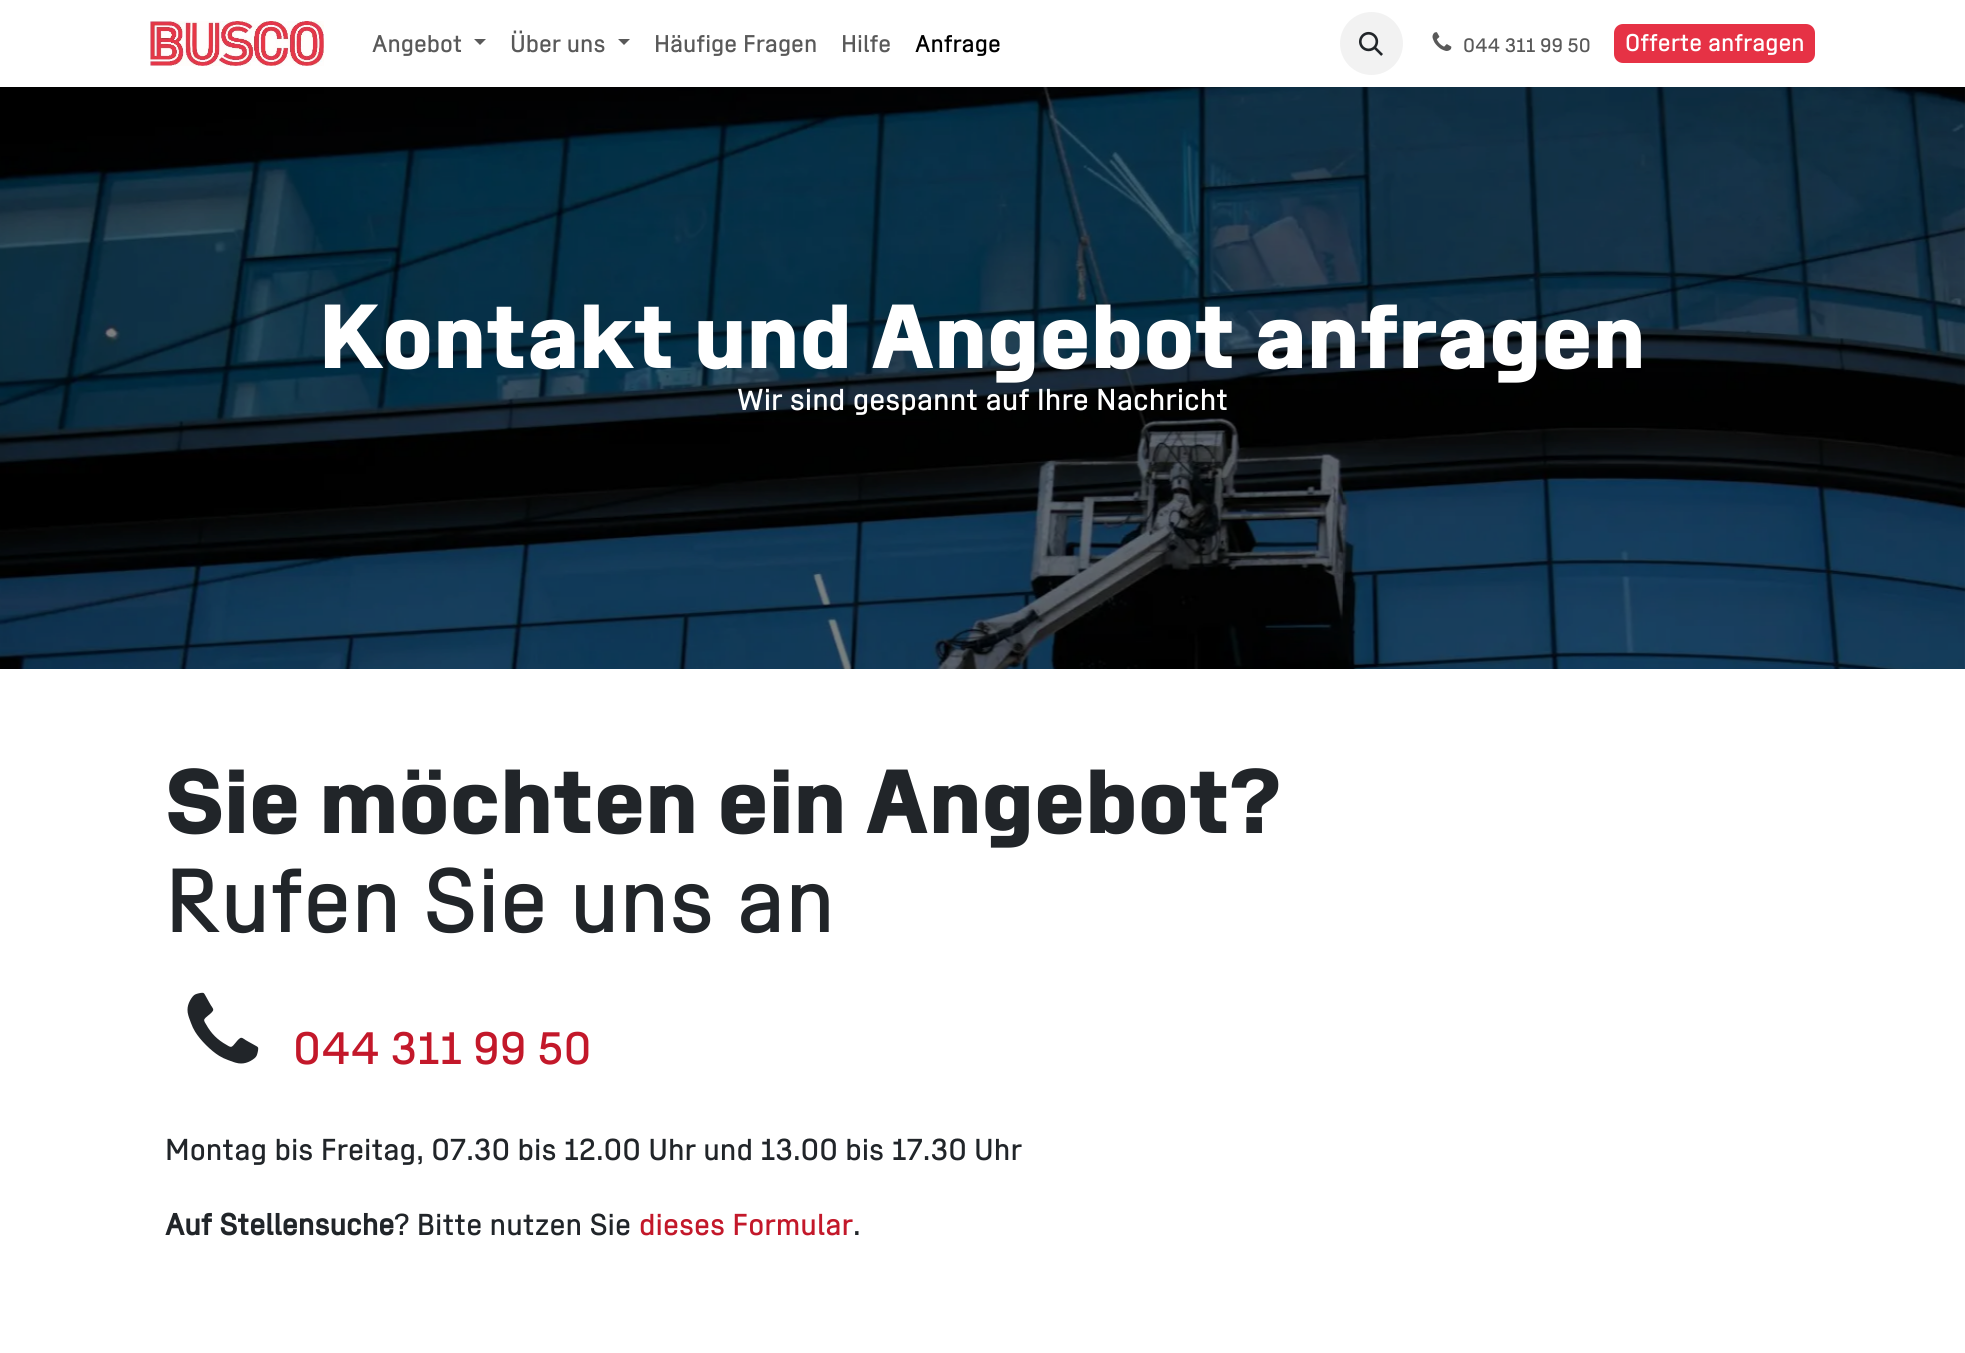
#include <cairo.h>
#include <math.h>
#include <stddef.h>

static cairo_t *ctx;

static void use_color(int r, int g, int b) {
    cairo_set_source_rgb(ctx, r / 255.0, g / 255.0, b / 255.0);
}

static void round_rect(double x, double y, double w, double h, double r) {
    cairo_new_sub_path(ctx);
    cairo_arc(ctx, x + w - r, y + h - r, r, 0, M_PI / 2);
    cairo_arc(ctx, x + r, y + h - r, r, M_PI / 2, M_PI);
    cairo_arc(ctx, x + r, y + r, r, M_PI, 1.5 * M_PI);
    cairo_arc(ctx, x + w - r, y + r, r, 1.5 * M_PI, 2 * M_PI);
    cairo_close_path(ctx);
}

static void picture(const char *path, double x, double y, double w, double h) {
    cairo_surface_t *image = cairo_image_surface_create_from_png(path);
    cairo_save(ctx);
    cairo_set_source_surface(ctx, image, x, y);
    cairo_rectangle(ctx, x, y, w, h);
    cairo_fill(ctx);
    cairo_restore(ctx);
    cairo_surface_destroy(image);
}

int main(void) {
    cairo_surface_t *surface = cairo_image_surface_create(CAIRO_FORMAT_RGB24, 1965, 1353);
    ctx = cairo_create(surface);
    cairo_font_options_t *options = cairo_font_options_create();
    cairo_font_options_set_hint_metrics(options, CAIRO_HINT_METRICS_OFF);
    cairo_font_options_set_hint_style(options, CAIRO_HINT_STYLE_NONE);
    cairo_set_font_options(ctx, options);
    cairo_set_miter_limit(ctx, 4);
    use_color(255, 255, 255);
    cairo_paint(ctx);
    picture("img1.png", 150, 21, 174, 45);
    cairo_select_font_face(ctx, "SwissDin", CAIRO_FONT_SLANT_NORMAL, CAIRO_FONT_WEIGHT_NORMAL);
    cairo_set_font_size(ctx, 24);
    use_color(89, 89, 89);
    cairo_move_to(ctx, 372, 52);
    cairo_show_text(ctx, "Angebot");
    cairo_new_path(ctx);
    cairo_move_to(ctx, 474, 39);
    cairo_line_to(ctx, 486, 39);
    cairo_line_to(ctx, 480, 45);
    cairo_close_path(ctx);
    cairo_fill(ctx);
    cairo_move_to(ctx, 510, 52);
    cairo_show_text(ctx, "Über uns");
    cairo_new_path(ctx);
    cairo_move_to(ctx, 618, 39);
    cairo_line_to(ctx, 630, 39);
    cairo_line_to(ctx, 624, 45);
    cairo_close_path(ctx);
    cairo_fill(ctx);
    cairo_move_to(ctx, 654, 52);
    cairo_show_text(ctx, "Häufige Fragen");
    cairo_move_to(ctx, 841, 52);
    cairo_show_text(ctx, "Hilfe");
    use_color(0, 0, 0);
    cairo_move_to(ctx, 915, 52);
    cairo_show_text(ctx, "Anfrage");
    use_color(242, 242, 242);
    cairo_new_path(ctx);
    cairo_arc(ctx, 1371.5, 43.5, 31.5, 0, 2 * M_PI);
    cairo_fill(ctx);
    picture("img2.png", 1359, 31, 24, 25);
    picture("img3.png", 1432, 32, 20, 19);
    cairo_set_font_size(ctx, 19.25);
    use_color(89, 89, 89);
    cairo_move_to(ctx, 1463, 52);
    cairo_show_text(ctx, "044 311 99 50");
    use_color(230, 50, 69);
    round_rect(1615, 25, 199, 37, 8);
    cairo_fill_preserve(ctx);
    cairo_stroke(ctx);
    cairo_set_font_size(ctx, 24);
    use_color(255, 255, 255);
    cairo_move_to(ctx, 1625, 51);
    cairo_show_text(ctx, "Offerte anfragen");
    picture("img4.png", 0, 87, 1965, 582);
    cairo_select_font_face(ctx, "SwissDin", CAIRO_FONT_SLANT_NORMAL, CAIRO_FONT_WEIGHT_BOLD);
    cairo_set_font_size(ctx, 90);
    cairo_move_to(ctx, 319, 368);
    cairo_show_text(ctx, "Kontakt und Angebot anfragen");
    cairo_select_font_face(ctx, "SwissDin", CAIRO_FONT_SLANT_NORMAL, CAIRO_FONT_WEIGHT_NORMAL);
    cairo_set_font_size(ctx, 30);
    cairo_move_to(ctx, 737, 410);
    cairo_show_text(ctx, "Wir sind gespannt auf Ihre Nachricht");
    cairo_select_font_face(ctx, "SwissDin", CAIRO_FONT_SLANT_NORMAL, CAIRO_FONT_WEIGHT_BOLD);
    cairo_set_font_size(ctx, 90);
    use_color(33, 37, 41);
    cairo_move_to(ctx, 165, 833);
    cairo_show_text(ctx, "Sie möchten ein Angebot?");
    cairo_select_font_face(ctx, "SwissDin", CAIRO_FONT_SLANT_NORMAL, CAIRO_FONT_WEIGHT_NORMAL);
    cairo_move_to(ctx, 165, 932);
    cairo_show_text(ctx, "Rufen Sie uns an");
    picture("img5.png", 187, 992, 72, 72);
    cairo_set_font_size(ctx, 45);
    use_color(195, 24, 42);
    cairo_move_to(ctx, 293, 1064);
    cairo_show_text(ctx, "044 311 99 50");
    cairo_set_font_size(ctx, 30);
    use_color(33, 37, 41);
    cairo_move_to(ctx, 165, 1160);
    cairo_show_text(ctx, "Montag bis Freitag, 07.30 bis 12.00 Uhr und 13.00 bis 17.30 Uhr");
    cairo_select_font_face(ctx, "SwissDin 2", CAIRO_FONT_SLANT_NORMAL, CAIRO_FONT_WEIGHT_BOLD);
    cairo_move_to(ctx, 165, 1235);
    cairo_show_text(ctx, "Auf Stellensuche");
    cairo_select_font_face(ctx, "SwissDin", CAIRO_FONT_SLANT_NORMAL, CAIRO_FONT_WEIGHT_NORMAL);
    cairo_move_to(ctx, 394, 1235);
    cairo_show_text(ctx, "? Bitte nutzen Sie");
    use_color(195, 24, 42);
    cairo_move_to(ctx, 639, 1235);
    cairo_show_text(ctx, "dieses Formular");
    use_color(33, 37, 41);
    cairo_move_to(ctx, 853, 1235);
    cairo_show_text(ctx, ".");
    cairo_surface_write_to_png(surface, "result.png");
    cairo_font_options_destroy(options);
    cairo_destroy(ctx);
    cairo_surface_destroy(surface);
    return 0;
}
